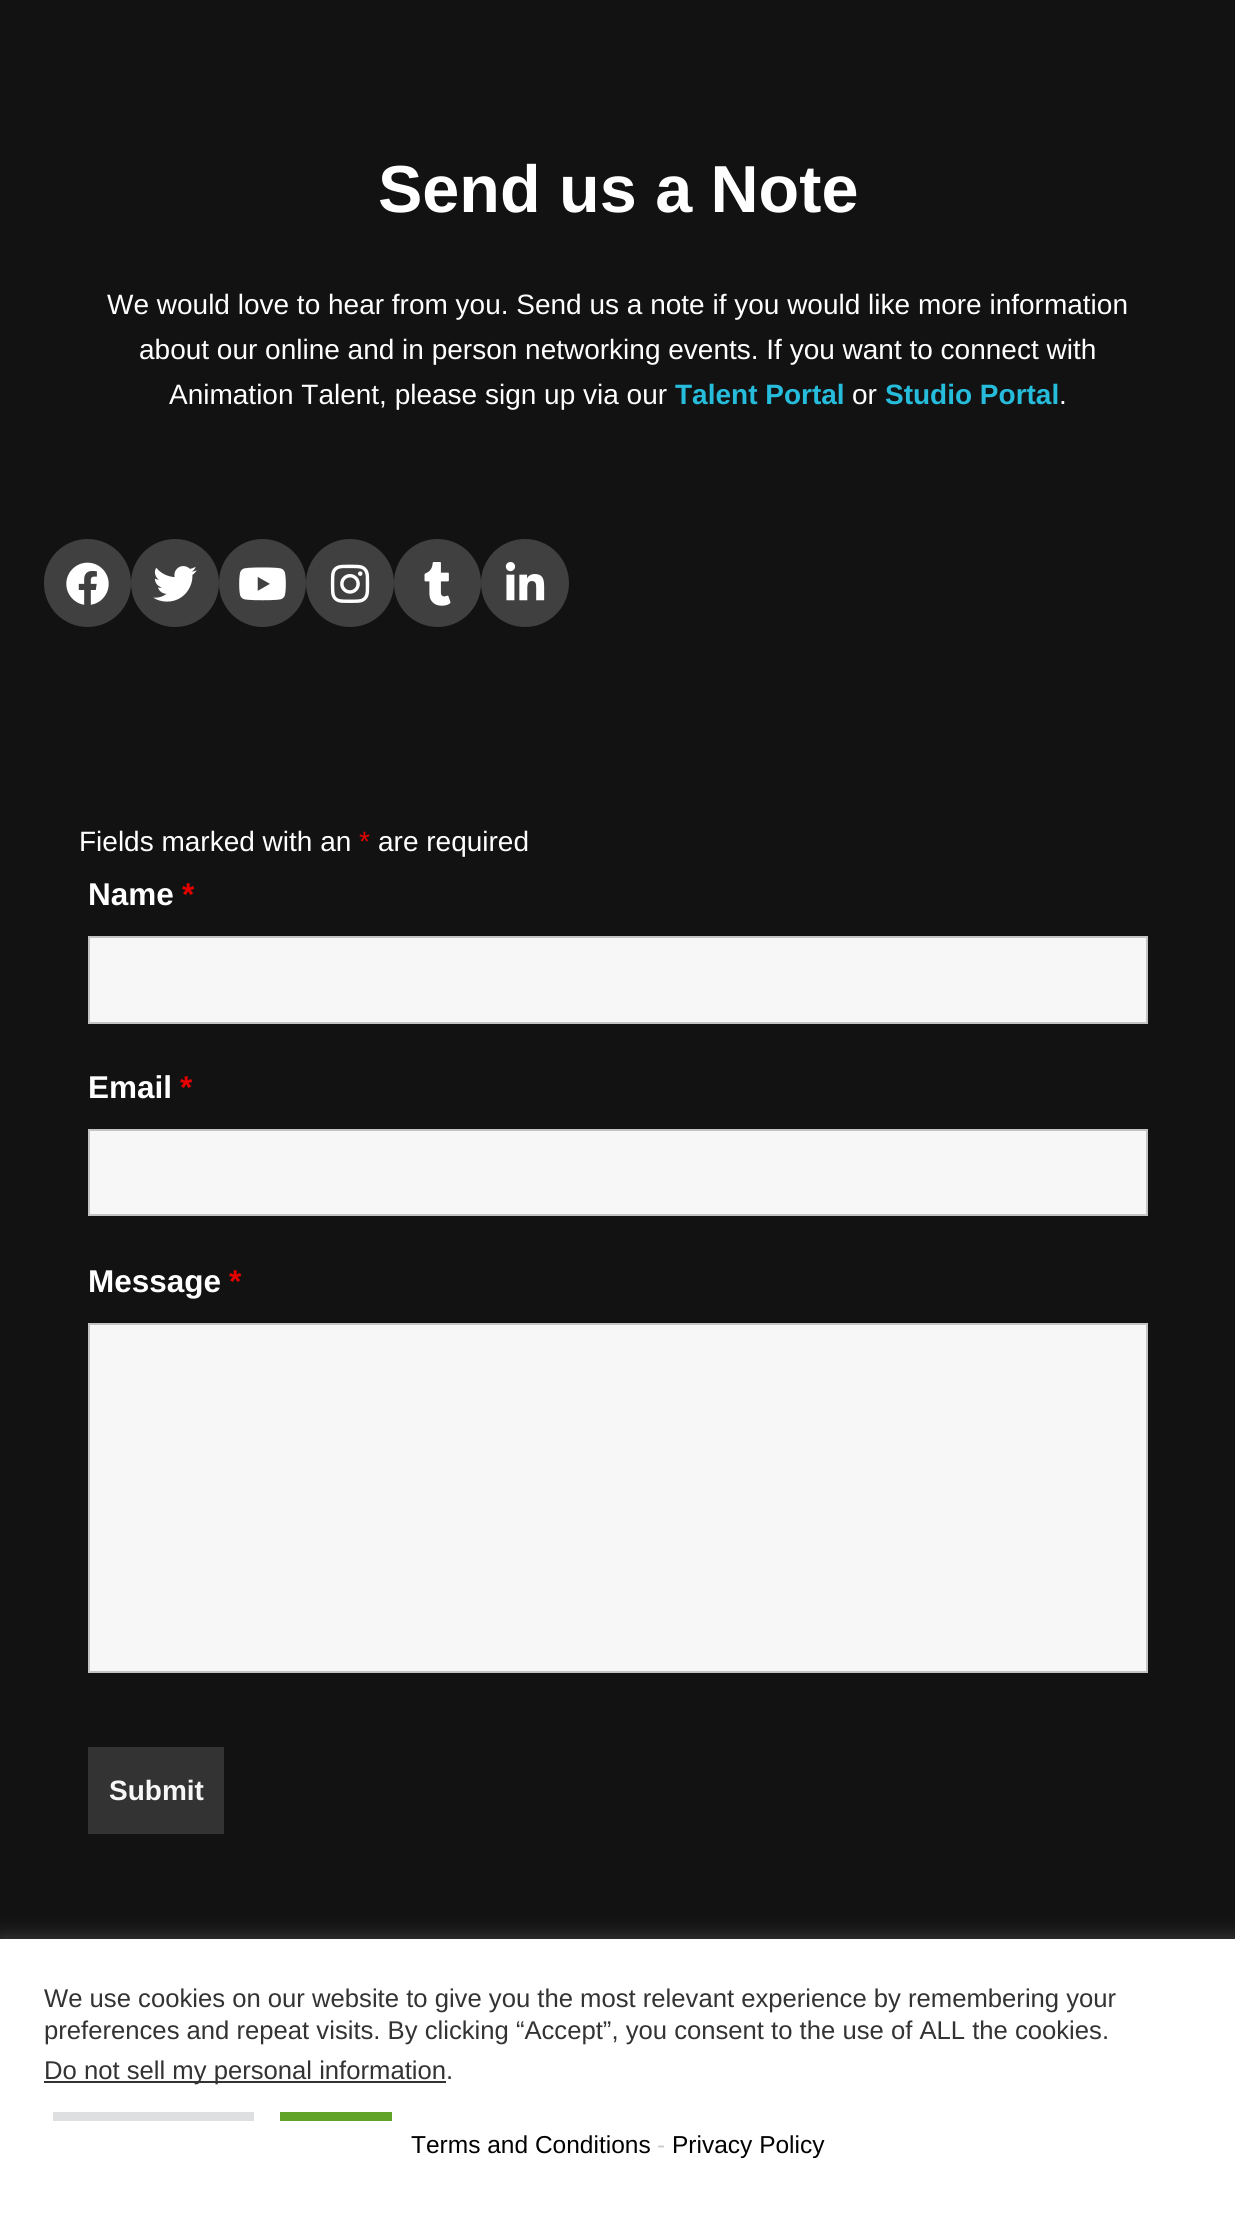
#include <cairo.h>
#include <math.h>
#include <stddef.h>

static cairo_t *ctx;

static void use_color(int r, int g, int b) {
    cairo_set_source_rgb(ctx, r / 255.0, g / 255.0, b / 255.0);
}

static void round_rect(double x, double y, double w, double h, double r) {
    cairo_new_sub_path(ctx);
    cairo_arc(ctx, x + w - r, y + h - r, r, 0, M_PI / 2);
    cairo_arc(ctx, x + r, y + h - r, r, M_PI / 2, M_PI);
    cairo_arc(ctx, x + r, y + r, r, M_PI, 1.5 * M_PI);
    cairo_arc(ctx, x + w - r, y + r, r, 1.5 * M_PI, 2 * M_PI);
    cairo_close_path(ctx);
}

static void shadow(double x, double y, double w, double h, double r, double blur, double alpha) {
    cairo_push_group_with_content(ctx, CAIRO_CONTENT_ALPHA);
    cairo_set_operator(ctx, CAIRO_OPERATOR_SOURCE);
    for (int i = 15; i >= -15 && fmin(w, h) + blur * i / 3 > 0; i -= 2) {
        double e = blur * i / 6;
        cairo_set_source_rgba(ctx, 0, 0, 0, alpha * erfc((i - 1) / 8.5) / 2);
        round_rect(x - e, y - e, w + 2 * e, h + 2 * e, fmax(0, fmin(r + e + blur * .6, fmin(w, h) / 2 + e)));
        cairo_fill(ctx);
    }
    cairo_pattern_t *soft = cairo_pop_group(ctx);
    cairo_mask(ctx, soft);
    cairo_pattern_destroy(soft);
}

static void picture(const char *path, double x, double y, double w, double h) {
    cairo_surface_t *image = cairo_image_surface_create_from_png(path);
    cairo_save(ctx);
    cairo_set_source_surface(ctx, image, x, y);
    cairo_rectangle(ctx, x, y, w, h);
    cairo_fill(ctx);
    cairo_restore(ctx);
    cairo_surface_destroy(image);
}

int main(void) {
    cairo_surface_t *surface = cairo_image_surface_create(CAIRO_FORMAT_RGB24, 1235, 2218);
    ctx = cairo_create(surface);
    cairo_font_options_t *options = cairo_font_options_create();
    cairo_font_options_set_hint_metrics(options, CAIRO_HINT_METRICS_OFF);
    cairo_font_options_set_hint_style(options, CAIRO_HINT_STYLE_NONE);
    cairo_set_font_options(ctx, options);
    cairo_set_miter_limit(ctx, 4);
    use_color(18, 18, 18);
    cairo_paint(ctx);
    cairo_select_font_face(ctx, "Liberation Sans", CAIRO_FONT_SLANT_NORMAL, CAIRO_FONT_WEIGHT_BOLD);
    cairo_set_font_size(ctx, 66.5);
    use_color(255, 255, 255);
    cairo_move_to(ctx, 378, 212);
    cairo_show_text(ctx, "Send us a Note");
    cairo_select_font_face(ctx, "Liberation Sans", CAIRO_FONT_SLANT_NORMAL, CAIRO_FONT_WEIGHT_NORMAL);
    cairo_set_font_size(ctx, 28);
    cairo_move_to(ctx, 107, 314);
    cairo_show_text(ctx, "We would love to hear from you. Send us a note if you would like more information");
    cairo_move_to(ctx, 139, 359);
    cairo_show_text(ctx, "about our online and in person networking events. If you want to connect with");
    cairo_move_to(ctx, 169, 404);
    cairo_show_text(ctx, "Animation Talent, please sign up via our");
    cairo_select_font_face(ctx, "Liberation Sans", CAIRO_FONT_SLANT_NORMAL, CAIRO_FONT_WEIGHT_BOLD);
    use_color(38, 188, 219);
    cairo_move_to(ctx, 675, 404);
    cairo_show_text(ctx, "Talent Portal");
    cairo_select_font_face(ctx, "Liberation Sans", CAIRO_FONT_SLANT_NORMAL, CAIRO_FONT_WEIGHT_NORMAL);
    use_color(255, 255, 255);
    cairo_move_to(ctx, 852, 404);
    cairo_show_text(ctx, "or");
    cairo_select_font_face(ctx, "Liberation Sans", CAIRO_FONT_SLANT_NORMAL, CAIRO_FONT_WEIGHT_BOLD);
    use_color(38, 188, 219);
    cairo_move_to(ctx, 885, 404);
    cairo_show_text(ctx, "Studio Portal");
    cairo_select_font_face(ctx, "Liberation Sans", CAIRO_FONT_SLANT_NORMAL, CAIRO_FONT_WEIGHT_NORMAL);
    use_color(255, 255, 255);
    cairo_move_to(ctx, 1059, 404);
    cairo_show_text(ctx, ".");
    use_color(64, 64, 64);
    round_rect(44, 539, 87, 88, 43.5);
    cairo_fill(ctx);
    picture("img1.png", 66, 562, 43, 43);
    cairo_arc(ctx, 175, 583, 44, 0, 2 * M_PI);
    cairo_fill(ctx);
    picture("img2.png", 153, 566, 44, 36);
    round_rect(219, 539, 87, 88, 43.5);
    cairo_fill(ctx);
    picture("img3.png", 239, 567, 47, 34);
    cairo_arc(ctx, 350, 583, 44, 0, 2 * M_PI);
    cairo_fill(ctx);
    picture("img4.png", 330, 564, 40, 39);
    round_rect(394, 539, 87, 88, 43.5);
    cairo_fill(ctx);
    picture("img5.png", 424, 562, 27, 44);
    cairo_arc(ctx, 525, 583, 44, 0, 2 * M_PI);
    cairo_fill(ctx);
    picture("img6.png", 505, 562, 40, 39);
    use_color(255, 255, 255);
    cairo_move_to(ctx, 79, 851);
    cairo_show_text(ctx, "Fields marked with an");
    use_color(232, 0, 0);
    cairo_move_to(ctx, 359, 851);
    cairo_show_text(ctx, "*");
    use_color(255, 255, 255);
    cairo_move_to(ctx, 378, 851);
    cairo_show_text(ctx, "are required");
    cairo_select_font_face(ctx, "Liberation Sans", CAIRO_FONT_SLANT_NORMAL, CAIRO_FONT_WEIGHT_BOLD);
    cairo_set_font_size(ctx, 31.5);
    cairo_move_to(ctx, 88, 905);
    cairo_show_text(ctx, "Name");
    use_color(232, 0, 0);
    cairo_move_to(ctx, 182, 905);
    cairo_show_text(ctx, "*");
    use_color(247, 247, 247);
    cairo_rectangle(ctx, 89, 937, 1058, 86);
    cairo_fill_preserve(ctx);
    use_color(196, 196, 196);
    cairo_stroke(ctx);
    use_color(255, 255, 255);
    cairo_move_to(ctx, 88, 1098);
    cairo_show_text(ctx, "Email");
    use_color(232, 0, 0);
    cairo_move_to(ctx, 180, 1098);
    cairo_show_text(ctx, "*");
    use_color(247, 247, 247);
    cairo_rectangle(ctx, 89, 1130, 1058, 85);
    cairo_fill_preserve(ctx);
    use_color(196, 196, 196);
    cairo_stroke(ctx);
    use_color(255, 255, 255);
    cairo_move_to(ctx, 88, 1292);
    cairo_show_text(ctx, "Message");
    use_color(232, 0, 0);
    cairo_move_to(ctx, 229, 1292);
    cairo_show_text(ctx, "*");
    use_color(247, 247, 247);
    cairo_rectangle(ctx, 89, 1324, 1058, 348);
    cairo_fill_preserve(ctx);
    use_color(196, 196, 196);
    cairo_stroke(ctx);
    use_color(51, 51, 51);
    cairo_rectangle(ctx, 88, 1747, 136, 87);
    cairo_fill(ctx);
    cairo_set_font_size(ctx, 28);
    use_color(247, 247, 247);
    cairo_move_to(ctx, 109, 1800);
    cairo_show_text(ctx, "Submit");
    use_color(172, 171, 171);
    shadow(0, 1937, 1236, 280, 0, 9, 0.3);
    use_color(255, 255, 255);
    cairo_rectangle(ctx, 0, 1939, 1235, 279);
    cairo_fill(ctx);
    cairo_select_font_face(ctx, "Liberation Sans", CAIRO_FONT_SLANT_NORMAL, CAIRO_FONT_WEIGHT_NORMAL);
    cairo_set_font_size(ctx, 25.65);
    use_color(51, 51, 51);
    cairo_move_to(ctx, 44, 2007);
    cairo_show_text(ctx, "We use cookies on our website to give you the most relevant experience by remembering your");
    cairo_move_to(ctx, 44, 2039);
    cairo_show_text(ctx, "preferences and repeat visits. By clicking “Accept”, you consent to the use of ALL the cookies.");
    cairo_rectangle(ctx, 44, 2081, 402, 2);
    cairo_fill(ctx);
    cairo_move_to(ctx, 44, 2079);
    cairo_show_text(ctx, "Do not sell my personal information.");
    use_color(222, 223, 224);
    cairo_rectangle(ctx, 53, 2112, 201, 9);
    cairo_fill(ctx);
    use_color(97, 162, 41);
    cairo_rectangle(ctx, 280, 2112, 112, 9);
    cairo_fill(ctx);
    cairo_set_font_size(ctx, 24.5);
    use_color(0, 0, 0);
    cairo_move_to(ctx, 411, 2153);
    cairo_show_text(ctx, "Terms and Conditions");
    use_color(204, 204, 204);
    cairo_move_to(ctx, 657, 2153);
    cairo_show_text(ctx, "-");
    use_color(0, 0, 0);
    cairo_move_to(ctx, 672, 2153);
    cairo_show_text(ctx, "Privacy Policy");
    cairo_surface_write_to_png(surface, "result.png");
    cairo_font_options_destroy(options);
    cairo_destroy(ctx);
    cairo_surface_destroy(surface);
    return 0;
}
